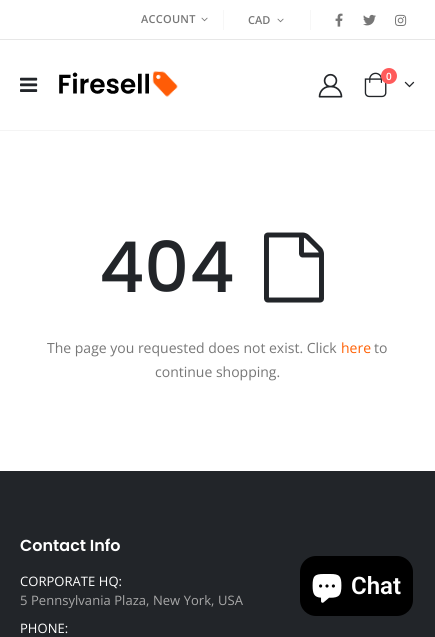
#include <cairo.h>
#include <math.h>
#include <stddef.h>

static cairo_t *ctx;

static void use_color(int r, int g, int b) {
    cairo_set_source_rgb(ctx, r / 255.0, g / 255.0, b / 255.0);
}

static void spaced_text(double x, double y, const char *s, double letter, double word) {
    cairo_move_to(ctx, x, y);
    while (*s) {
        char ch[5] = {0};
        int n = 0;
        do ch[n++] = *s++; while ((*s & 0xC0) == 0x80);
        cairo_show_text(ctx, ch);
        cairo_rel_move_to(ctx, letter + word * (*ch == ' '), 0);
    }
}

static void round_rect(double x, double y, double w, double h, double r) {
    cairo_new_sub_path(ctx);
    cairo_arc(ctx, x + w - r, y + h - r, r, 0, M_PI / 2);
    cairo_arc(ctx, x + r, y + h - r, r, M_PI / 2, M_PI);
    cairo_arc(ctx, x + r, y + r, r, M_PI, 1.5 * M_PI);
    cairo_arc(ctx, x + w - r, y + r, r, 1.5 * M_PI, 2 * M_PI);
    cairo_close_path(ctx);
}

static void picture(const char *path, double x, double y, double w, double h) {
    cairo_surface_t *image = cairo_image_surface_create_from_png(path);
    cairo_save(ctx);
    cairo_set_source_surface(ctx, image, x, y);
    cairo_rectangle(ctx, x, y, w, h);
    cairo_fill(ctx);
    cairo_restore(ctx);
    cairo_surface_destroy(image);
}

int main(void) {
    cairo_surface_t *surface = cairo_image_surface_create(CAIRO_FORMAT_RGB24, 435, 637);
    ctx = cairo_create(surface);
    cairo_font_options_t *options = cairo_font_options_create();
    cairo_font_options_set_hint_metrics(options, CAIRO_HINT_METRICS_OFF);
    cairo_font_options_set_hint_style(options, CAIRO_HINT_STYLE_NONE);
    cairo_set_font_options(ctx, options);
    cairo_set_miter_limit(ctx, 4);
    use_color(255, 255, 255);
    cairo_paint(ctx);
    use_color(244, 244, 244);
    cairo_rectangle(ctx, 0, 130, 435, 1);
    cairo_fill(ctx);
    cairo_select_font_face(ctx, "Open Sans SemiBold", CAIRO_FONT_SLANT_NORMAL, CAIRO_FONT_WEIGHT_NORMAL);
    cairo_set_font_size(ctx, 11);
    use_color(119, 119, 119);
    spaced_text(141, 23, "ACCOUNT", 0.25, 0);
    picture("img1.png", 201, 17, 7, 5);
    use_color(247, 247, 247);
    cairo_rectangle(ctx, 223, 10, 1, 20);
    cairo_fill(ctx);
    use_color(119, 119, 119);
    cairo_move_to(ctx, 248, 24);
    cairo_show_text(ctx, "CAD");
    picture("img1.png", 277, 18, 7, 5);
    use_color(247, 247, 247);
    cairo_rectangle(ctx, 310, 10, 1, 20);
    cairo_fill(ctx);
    picture("img2.png", 335, 13, 8, 14);
    picture("img3.png", 363, 14, 13, 12);
    picture("img4.png", 395, 14, 12, 12);
    use_color(231, 231, 231);
    cairo_rectangle(ctx, 0, 39, 435, 1);
    cairo_fill(ctx);
    picture("img5.png", 20, 77, 18, 15);
    picture("img6.png", 59, 71, 119, 26);
    picture("img7.png", 318, 73, 25, 25);
    picture("img8.png", 364, 72, 23, 26);
    use_color(255, 91, 91);
    cairo_arc(ctx, 389, 76, 8, 0, 2 * M_PI);
    cairo_fill(ctx);
    cairo_set_font_size(ctx, 10);
    use_color(255, 255, 255);
    cairo_move_to(ctx, 386, 80);
    cairo_show_text(ctx, "0");
    picture("img9.png", 404, 81, 11, 7);
    cairo_select_font_face(ctx, "Poppins Medium", CAIRO_FONT_SLANT_NORMAL, CAIRO_FONT_WEIGHT_NORMAL);
    cairo_set_font_size(ctx, 70);
    use_color(34, 37, 41);
    cairo_move_to(ctx, 99, 292);
    cairo_show_text(ctx, "404");
    picture("img10.png", 264, 232, 60, 71);
    cairo_select_font_face(ctx, "Open Sans", CAIRO_FONT_SLANT_NORMAL, CAIRO_FONT_WEIGHT_NORMAL);
    cairo_set_font_size(ctx, 14);
    use_color(119, 119, 119);
    cairo_move_to(ctx, 47, 353);
    cairo_show_text(ctx, "The page you requested does not exist. Click");
    use_color(255, 95, 2);
    cairo_move_to(ctx, 341, 353);
    cairo_show_text(ctx, "here");
    use_color(119, 119, 119);
    cairo_move_to(ctx, 374, 353);
    cairo_show_text(ctx, "to");
    cairo_move_to(ctx, 155, 377);
    cairo_show_text(ctx, "continue shopping.");
    use_color(34, 37, 41);
    cairo_rectangle(ctx, 0, 471, 435, 166);
    cairo_fill(ctx);
    cairo_select_font_face(ctx, "Poppins SemiBold", CAIRO_FONT_SLANT_NORMAL, CAIRO_FONT_WEIGHT_NORMAL);
    cairo_set_font_size(ctx, 16);
    use_color(255, 255, 255);
    cairo_move_to(ctx, 20, 551);
    cairo_show_text(ctx, "Contact Info");
    cairo_select_font_face(ctx, "Open Sans", CAIRO_FONT_SLANT_NORMAL, CAIRO_FONT_WEIGHT_NORMAL);
    cairo_set_font_size(ctx, 13);
    spaced_text(20, 586, "CORPORATE HQ:", 0.05, 0);
    use_color(168, 168, 168);
    spaced_text(20, 605, "5 Pennsylvania Plaza, New York, USA", 0.05, 0);
    use_color(255, 255, 255);
    spaced_text(20, 633, "PHONE:", 0.05, 0);
    use_color(0, 0, 0);
    round_rect(300, 556, 113, 60, 16);
    cairo_fill(ctx);
    picture("img11.png", 312, 574, 30, 29);
    cairo_select_font_face(ctx, "Roboto SemiBold", CAIRO_FONT_SLANT_NORMAL, CAIRO_FONT_WEIGHT_NORMAL);
    cairo_set_font_size(ctx, 24);
    use_color(255, 255, 255);
    cairo_move_to(ctx, 351, 594);
    cairo_show_text(ctx, "Chat");
    cairo_surface_write_to_png(surface, "result.png");
    cairo_font_options_destroy(options);
    cairo_destroy(ctx);
    cairo_surface_destroy(surface);
    return 0;
}
